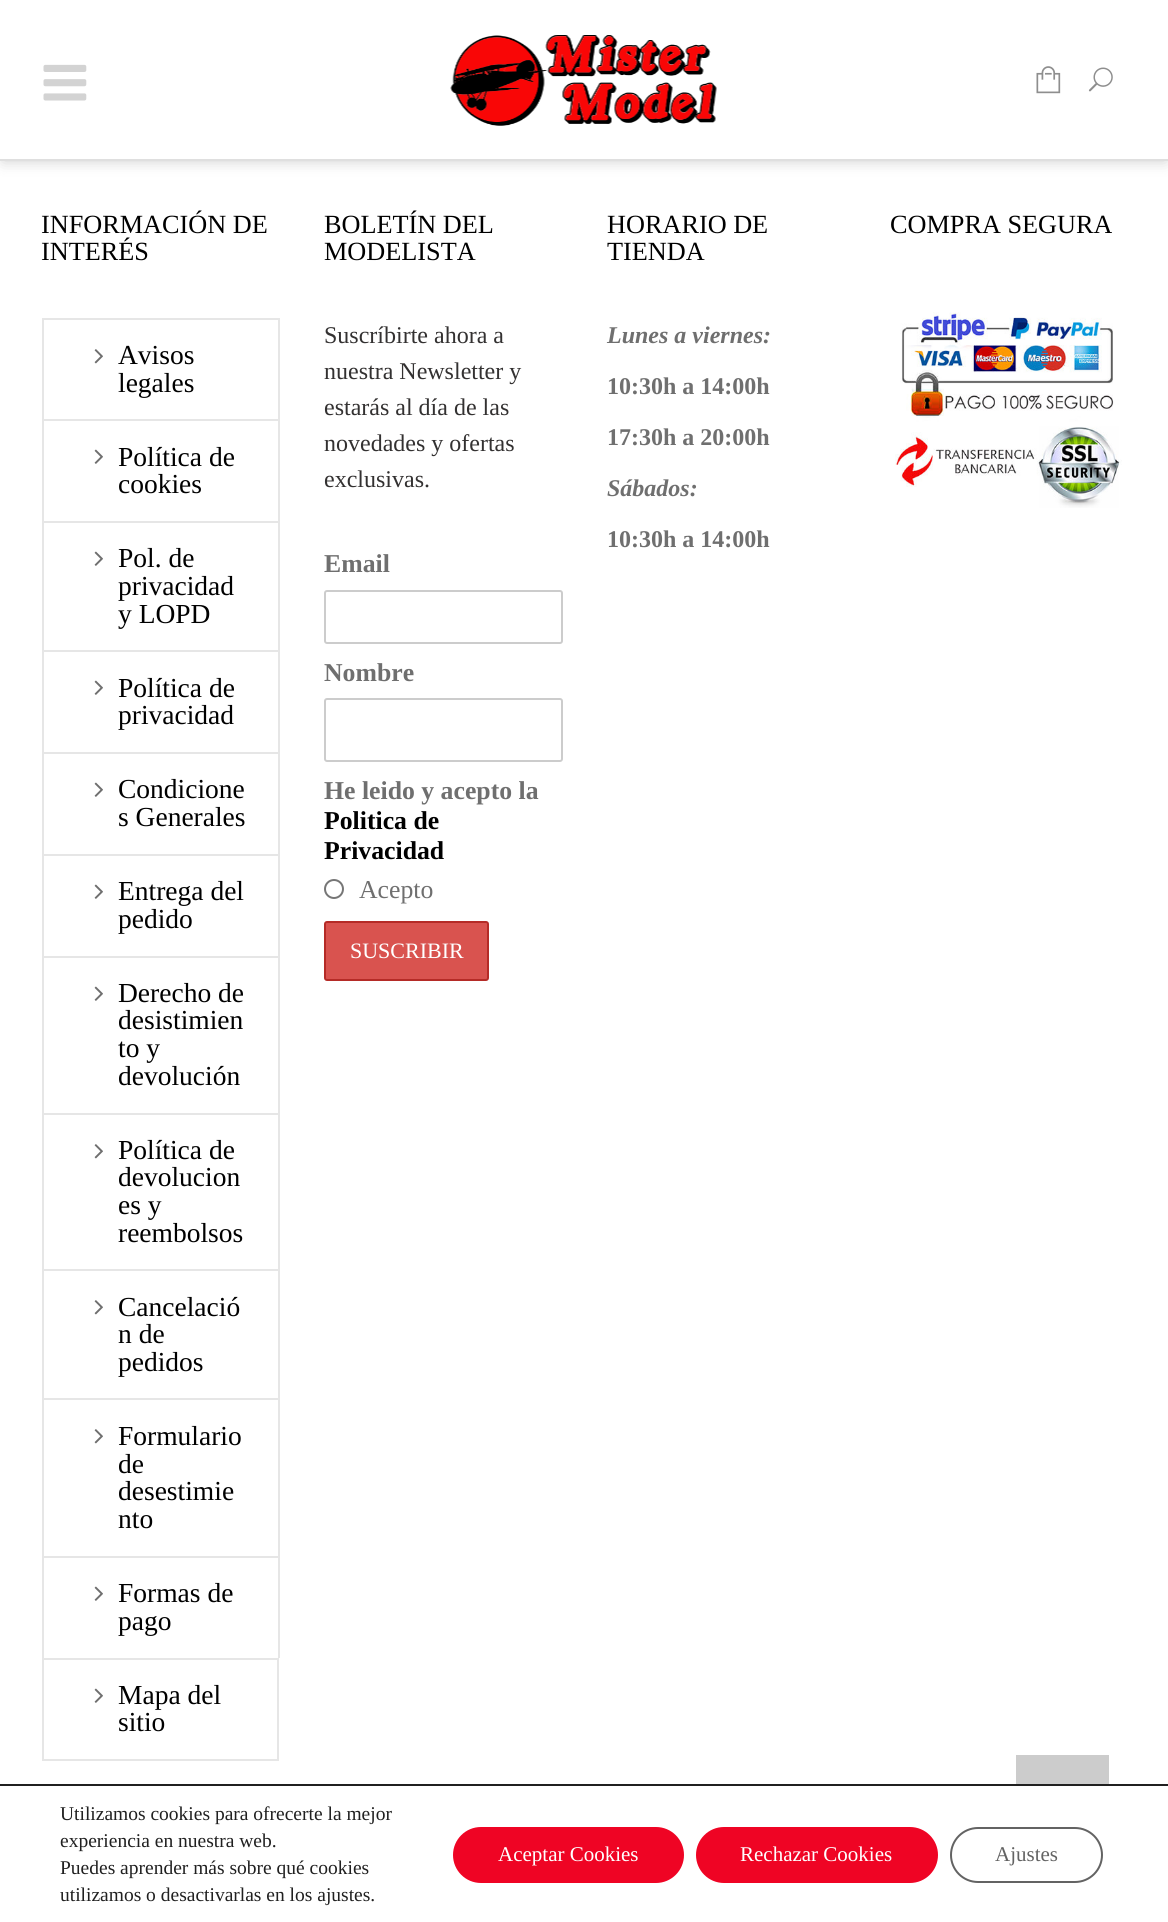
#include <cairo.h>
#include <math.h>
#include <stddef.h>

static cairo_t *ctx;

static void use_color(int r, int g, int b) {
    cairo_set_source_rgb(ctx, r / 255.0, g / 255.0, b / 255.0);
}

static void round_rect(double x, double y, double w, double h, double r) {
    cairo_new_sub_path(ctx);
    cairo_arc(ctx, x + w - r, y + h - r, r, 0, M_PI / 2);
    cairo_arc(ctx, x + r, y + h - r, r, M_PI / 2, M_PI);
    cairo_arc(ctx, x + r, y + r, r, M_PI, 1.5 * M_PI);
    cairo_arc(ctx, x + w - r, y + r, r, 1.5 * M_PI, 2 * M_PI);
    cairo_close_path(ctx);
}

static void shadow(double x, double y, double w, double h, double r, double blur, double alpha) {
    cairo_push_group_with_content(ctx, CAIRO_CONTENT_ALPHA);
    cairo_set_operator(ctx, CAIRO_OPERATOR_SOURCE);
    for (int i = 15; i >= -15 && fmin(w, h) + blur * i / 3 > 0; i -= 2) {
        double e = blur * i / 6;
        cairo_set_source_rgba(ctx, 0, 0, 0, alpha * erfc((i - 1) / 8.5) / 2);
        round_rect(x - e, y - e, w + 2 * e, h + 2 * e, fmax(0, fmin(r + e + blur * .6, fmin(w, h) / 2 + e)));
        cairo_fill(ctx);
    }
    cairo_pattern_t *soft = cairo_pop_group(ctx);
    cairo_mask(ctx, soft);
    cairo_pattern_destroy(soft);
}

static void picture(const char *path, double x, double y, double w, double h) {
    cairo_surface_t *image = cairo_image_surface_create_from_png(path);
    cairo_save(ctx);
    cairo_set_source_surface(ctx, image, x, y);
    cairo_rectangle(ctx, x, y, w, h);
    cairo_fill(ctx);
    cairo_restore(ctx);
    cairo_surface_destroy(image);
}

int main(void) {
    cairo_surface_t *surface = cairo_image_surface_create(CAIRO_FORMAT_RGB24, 1168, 1922);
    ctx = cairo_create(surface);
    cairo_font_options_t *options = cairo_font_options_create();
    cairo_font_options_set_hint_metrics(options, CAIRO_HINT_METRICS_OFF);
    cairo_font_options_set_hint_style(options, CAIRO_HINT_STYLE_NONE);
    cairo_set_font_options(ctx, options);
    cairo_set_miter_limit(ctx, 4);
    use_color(255, 255, 255);
    cairo_paint(ctx);
    use_color(0, 0, 0);
    shadow(3, 6, 1163, 155, 0, 7.5, 0.2);
    use_color(255, 255, 255);
    cairo_rectangle(ctx, 0, 0, 1168, 159);
    cairo_fill(ctx);
    use_color(223, 223, 223);
    cairo_rectangle(ctx, 0, 159, 1168, 2);
    cairo_fill(ctx);
    picture("img1.png", 43, 64, 44, 37);
    picture("img2.png", 450, 35, 267, 91);
    picture("img3.png", 1036, 66, 25, 28);
    picture("img4.png", 1088, 67, 25, 25);
    use_color(204, 204, 204);
    cairo_rectangle(ctx, 1016, 1755, 93, 29);
    cairo_fill(ctx);
    cairo_select_font_face(ctx, "Liberation Serif", CAIRO_FONT_SLANT_NORMAL, CAIRO_FONT_WEIGHT_NORMAL);
    cairo_set_font_size(ctx, 26.25);
    use_color(0, 0, 0);
    cairo_move_to(ctx, 41, 233);
    cairo_show_text(ctx, "INFORMACIÓN DE");
    cairo_move_to(ctx, 41, 260);
    cairo_show_text(ctx, "INTERÉS");
    picture("img5.png", 94, 349, 9, 15);
    use_color(230, 230, 230);
    cairo_rectangle(ctx, 42, 318, 237, 2);
    cairo_fill(ctx);
    cairo_rectangle(ctx, 278, 318, 2, 101);
    cairo_fill(ctx);
    cairo_rectangle(ctx, 42, 318, 2, 101);
    cairo_fill(ctx);
    cairo_set_font_size(ctx, 27.5);
    use_color(0, 0, 0);
    cairo_move_to(ctx, 118, 364);
    cairo_show_text(ctx, "Avisos");
    cairo_move_to(ctx, 118, 392);
    cairo_show_text(ctx, "legales");
    picture("img6.png", 94, 449, 9, 15);
    use_color(230, 230, 230);
    cairo_rectangle(ctx, 42, 419, 237, 2);
    cairo_fill(ctx);
    cairo_rectangle(ctx, 278, 419, 2, 102);
    cairo_fill(ctx);
    cairo_rectangle(ctx, 42, 419, 2, 102);
    cairo_fill(ctx);
    use_color(0, 0, 0);
    cairo_move_to(ctx, 118, 466);
    cairo_show_text(ctx, "Política de");
    cairo_move_to(ctx, 118, 493);
    cairo_show_text(ctx, "cookies");
    picture("img6.png", 94, 551, 9, 15);
    use_color(230, 230, 230);
    cairo_rectangle(ctx, 42, 521, 237, 2);
    cairo_fill(ctx);
    cairo_rectangle(ctx, 278, 521, 2, 129);
    cairo_fill(ctx);
    cairo_rectangle(ctx, 42, 521, 2, 129);
    cairo_fill(ctx);
    use_color(0, 0, 0);
    cairo_move_to(ctx, 118, 567);
    cairo_show_text(ctx, "Pol. de");
    cairo_move_to(ctx, 118, 595);
    cairo_show_text(ctx, "privacidad");
    cairo_move_to(ctx, 118, 623);
    cairo_show_text(ctx, "y LOPD");
    picture("img6.png", 94, 680, 9, 15);
    use_color(230, 230, 230);
    cairo_rectangle(ctx, 42, 650, 237, 2);
    cairo_fill(ctx);
    cairo_rectangle(ctx, 278, 650, 2, 102);
    cairo_fill(ctx);
    cairo_rectangle(ctx, 42, 650, 2, 102);
    cairo_fill(ctx);
    use_color(0, 0, 0);
    cairo_move_to(ctx, 118, 697);
    cairo_show_text(ctx, "Política de");
    cairo_move_to(ctx, 118, 724);
    cairo_show_text(ctx, "privacidad");
    picture("img6.png", 94, 782, 9, 15);
    use_color(230, 230, 230);
    cairo_rectangle(ctx, 42, 752, 237, 2);
    cairo_fill(ctx);
    cairo_rectangle(ctx, 278, 752, 2, 102);
    cairo_fill(ctx);
    cairo_rectangle(ctx, 42, 752, 2, 102);
    cairo_fill(ctx);
    use_color(0, 0, 0);
    cairo_move_to(ctx, 118, 798);
    cairo_show_text(ctx, "Condicione");
    cairo_move_to(ctx, 118, 826);
    cairo_show_text(ctx, "s Generales");
    picture("img6.png", 94, 884, 9, 15);
    use_color(230, 230, 230);
    cairo_rectangle(ctx, 42, 854, 237, 2);
    cairo_fill(ctx);
    cairo_rectangle(ctx, 278, 854, 2, 102);
    cairo_fill(ctx);
    cairo_rectangle(ctx, 42, 854, 2, 102);
    cairo_fill(ctx);
    use_color(0, 0, 0);
    cairo_move_to(ctx, 118, 900);
    cairo_show_text(ctx, "Entrega del");
    cairo_move_to(ctx, 118, 928);
    cairo_show_text(ctx, "pedido");
    picture("img6.png", 94, 986, 9, 15);
    use_color(230, 230, 230);
    cairo_rectangle(ctx, 42, 956, 237, 2);
    cairo_fill(ctx);
    cairo_rectangle(ctx, 278, 956, 2, 157);
    cairo_fill(ctx);
    cairo_rectangle(ctx, 42, 956, 2, 157);
    cairo_fill(ctx);
    use_color(0, 0, 0);
    cairo_move_to(ctx, 118, 1002);
    cairo_show_text(ctx, "Derecho de");
    cairo_move_to(ctx, 118, 1029);
    cairo_show_text(ctx, "desistimien");
    cairo_move_to(ctx, 118, 1057);
    cairo_show_text(ctx, "to y");
    cairo_move_to(ctx, 118, 1085);
    cairo_show_text(ctx, "devolución");
    picture("img5.png", 94, 1144, 9, 15);
    use_color(230, 230, 230);
    cairo_rectangle(ctx, 42, 1113, 237, 2);
    cairo_fill(ctx);
    cairo_rectangle(ctx, 278, 1113, 2, 156);
    cairo_fill(ctx);
    cairo_rectangle(ctx, 42, 1113, 2, 156);
    cairo_fill(ctx);
    use_color(0, 0, 0);
    cairo_move_to(ctx, 118, 1159);
    cairo_show_text(ctx, "Política de");
    cairo_move_to(ctx, 118, 1186);
    cairo_show_text(ctx, "devolucion");
    cairo_move_to(ctx, 118, 1214);
    cairo_show_text(ctx, "es y");
    cairo_move_to(ctx, 118, 1242);
    cairo_show_text(ctx, "reembolsos");
    picture("img5.png", 94, 1300, 9, 15);
    use_color(230, 230, 230);
    cairo_rectangle(ctx, 42, 1269, 237, 2);
    cairo_fill(ctx);
    cairo_rectangle(ctx, 278, 1269, 2, 129);
    cairo_fill(ctx);
    cairo_rectangle(ctx, 42, 1269, 2, 129);
    cairo_fill(ctx);
    use_color(0, 0, 0);
    cairo_move_to(ctx, 118, 1316);
    cairo_show_text(ctx, "Cancelació");
    cairo_move_to(ctx, 118, 1343);
    cairo_show_text(ctx, "n de");
    cairo_move_to(ctx, 118, 1371);
    cairo_show_text(ctx, "pedidos");
    picture("img5.png", 94, 1429, 9, 15);
    use_color(230, 230, 230);
    cairo_rectangle(ctx, 42, 1398, 237, 2);
    cairo_fill(ctx);
    cairo_rectangle(ctx, 278, 1398, 2, 158);
    cairo_fill(ctx);
    cairo_rectangle(ctx, 42, 1398, 2, 158);
    cairo_fill(ctx);
    use_color(0, 0, 0);
    cairo_move_to(ctx, 118, 1445);
    cairo_show_text(ctx, "Formulario");
    cairo_move_to(ctx, 118, 1473);
    cairo_show_text(ctx, "de");
    cairo_move_to(ctx, 118, 1500);
    cairo_show_text(ctx, "desestimie");
    cairo_move_to(ctx, 118, 1528);
    cairo_show_text(ctx, "nto");
    picture("img6.png", 94, 1586, 9, 15);
    use_color(230, 230, 230);
    cairo_rectangle(ctx, 42, 1556, 237, 2);
    cairo_fill(ctx);
    cairo_rectangle(ctx, 278, 1556, 2, 102);
    cairo_fill(ctx);
    cairo_rectangle(ctx, 42, 1556, 2, 102);
    cairo_fill(ctx);
    use_color(0, 0, 0);
    cairo_move_to(ctx, 118, 1602);
    cairo_show_text(ctx, "Formas de");
    cairo_move_to(ctx, 118, 1630);
    cairo_show_text(ctx, "pago");
    cairo_rectangle(ctx, 43, 1659, 235, 101);
    use_color(230, 230, 230);
    cairo_stroke(ctx);
    picture("img6.png", 94, 1688, 9, 15);
    use_color(0, 0, 0);
    cairo_move_to(ctx, 118, 1704);
    cairo_show_text(ctx, "Mapa del");
    cairo_move_to(ctx, 118, 1731);
    cairo_show_text(ctx, "sitio");
    cairo_set_font_size(ctx, 26.25);
    cairo_move_to(ctx, 324, 233);
    cairo_show_text(ctx, "BOLETÍN DEL");
    cairo_move_to(ctx, 324, 260);
    cairo_show_text(ctx, "MODELISTA");
    cairo_set_font_size(ctx, 24);
    use_color(51, 49, 49);
    cairo_move_to(ctx, 324, 343);
    cairo_show_text(ctx, "Suscríbirte ahora a");
    cairo_move_to(ctx, 324, 379);
    cairo_show_text(ctx, "nuestra Newsletter y");
    cairo_move_to(ctx, 324, 415);
    cairo_show_text(ctx, "estarás al día de las");
    cairo_move_to(ctx, 324, 451);
    cairo_show_text(ctx, "novedades y ofertas");
    cairo_move_to(ctx, 324, 487);
    cairo_show_text(ctx, "exclusivas.");
    cairo_select_font_face(ctx, "Liberation Serif", CAIRO_FONT_SLANT_NORMAL, CAIRO_FONT_WEIGHT_BOLD);
    cairo_set_font_size(ctx, 25.75);
    use_color(111, 111, 111);
    cairo_move_to(ctx, 324, 572);
    cairo_show_text(ctx, "Email");
    round_rect(325, 591, 237, 52, 2);
    use_color(204, 204, 204);
    cairo_stroke(ctx);
    use_color(111, 111, 111);
    cairo_move_to(ctx, 324, 681);
    cairo_show_text(ctx, "Nombre");
    round_rect(325, 699, 237, 62, 2);
    use_color(204, 204, 204);
    cairo_stroke(ctx);
    use_color(111, 111, 111);
    cairo_move_to(ctx, 324, 799);
    cairo_show_text(ctx, "He leido y acepto la");
    use_color(0, 0, 0);
    cairo_move_to(ctx, 324, 829);
    cairo_show_text(ctx, "Politica de");
    cairo_move_to(ctx, 324, 859);
    cairo_show_text(ctx, "Privacidad");
    cairo_new_path(ctx);
    cairo_arc(ctx, 334, 889, 9, 0, 2 * M_PI);
    use_color(118, 118, 118);
    cairo_stroke(ctx);
    cairo_select_font_face(ctx, "Liberation Serif", CAIRO_FONT_SLANT_NORMAL, CAIRO_FONT_WEIGHT_NORMAL);
    use_color(111, 111, 111);
    cairo_move_to(ctx, 359, 898);
    cairo_show_text(ctx, "Acepto");
    use_color(217, 83, 79);
    round_rect(325, 922, 163, 58, 2);
    cairo_fill_preserve(ctx);
    use_color(181, 43, 39);
    cairo_stroke(ctx);
    cairo_set_font_size(ctx, 22);
    use_color(255, 255, 255);
    cairo_move_to(ctx, 350, 958);
    cairo_show_text(ctx, "SUSCRIBIR");
    cairo_set_font_size(ctx, 26.25);
    use_color(0, 0, 0);
    cairo_move_to(ctx, 607, 233);
    cairo_show_text(ctx, "HORARIO DE");
    cairo_move_to(ctx, 607, 260);
    cairo_show_text(ctx, "TIENDA");
    cairo_select_font_face(ctx, "Liberation Serif", CAIRO_FONT_SLANT_ITALIC, CAIRO_FONT_WEIGHT_BOLD);
    cairo_set_font_size(ctx, 24);
    use_color(111, 111, 111);
    cairo_move_to(ctx, 607, 343);
    cairo_show_text(ctx, "Lunes a viernes:");
    cairo_select_font_face(ctx, "Liberation Serif", CAIRO_FONT_SLANT_NORMAL, CAIRO_FONT_WEIGHT_BOLD);
    cairo_move_to(ctx, 607, 394);
    cairo_show_text(ctx, "10:30h a 14:00h");
    cairo_move_to(ctx, 607, 445);
    cairo_show_text(ctx, "17:30h a 20:00h");
    cairo_select_font_face(ctx, "Liberation Serif", CAIRO_FONT_SLANT_ITALIC, CAIRO_FONT_WEIGHT_BOLD);
    cairo_move_to(ctx, 607, 496);
    cairo_show_text(ctx, "Sábados:");
    cairo_select_font_face(ctx, "Liberation Serif", CAIRO_FONT_SLANT_NORMAL, CAIRO_FONT_WEIGHT_BOLD);
    cairo_move_to(ctx, 607, 547);
    cairo_show_text(ctx, "10:30h a 14:00h");
    cairo_select_font_face(ctx, "Liberation Serif", CAIRO_FONT_SLANT_NORMAL, CAIRO_FONT_WEIGHT_NORMAL);
    cairo_set_font_size(ctx, 26.25);
    use_color(0, 0, 0);
    cairo_move_to(ctx, 890, 233);
    cairo_show_text(ctx, "COMPRA SEGURA");
    picture("img7.png", 895, 312, 227, 196);
    use_color(32, 32, 32);
    cairo_rectangle(ctx, 0, 1784, 1168, 2);
    cairo_fill(ctx);
    cairo_set_font_size(ctx, 19.5);
    cairo_move_to(ctx, 60, 1820);
    cairo_show_text(ctx, "Utilizamos cookies para ofrecerte la mejor");
    cairo_move_to(ctx, 60, 1847);
    cairo_show_text(ctx, "experiencia en nuestra web.");
    cairo_move_to(ctx, 60, 1874);
    cairo_show_text(ctx, "Puedes aprender más sobre qué cookies");
    cairo_move_to(ctx, 60, 1901);
    cairo_show_text(ctx, "utilizamos o desactivarlas en los ajustes.");
    use_color(239, 4, 36);
    round_rect(453, 1827, 231, 56, 28);
    cairo_fill(ctx);
    cairo_set_font_size(ctx, 21);
    use_color(255, 255, 255);
    cairo_move_to(ctx, 498, 1861);
    cairo_show_text(ctx, "Aceptar Cookies");
    use_color(239, 4, 36);
    round_rect(696, 1827, 242, 56, 28);
    cairo_fill(ctx);
    use_color(255, 255, 255);
    cairo_move_to(ctx, 740, 1861);
    cairo_show_text(ctx, "Rechazar Cookies");
    round_rect(951, 1828, 151, 54, 27);
    use_color(99, 99, 99);
    cairo_stroke(ctx);
    cairo_move_to(ctx, 995, 1861);
    cairo_show_text(ctx, "Ajustes");
    cairo_surface_write_to_png(surface, "result.png");
    cairo_font_options_destroy(options);
    cairo_destroy(ctx);
    cairo_surface_destroy(surface);
    return 0;
}
